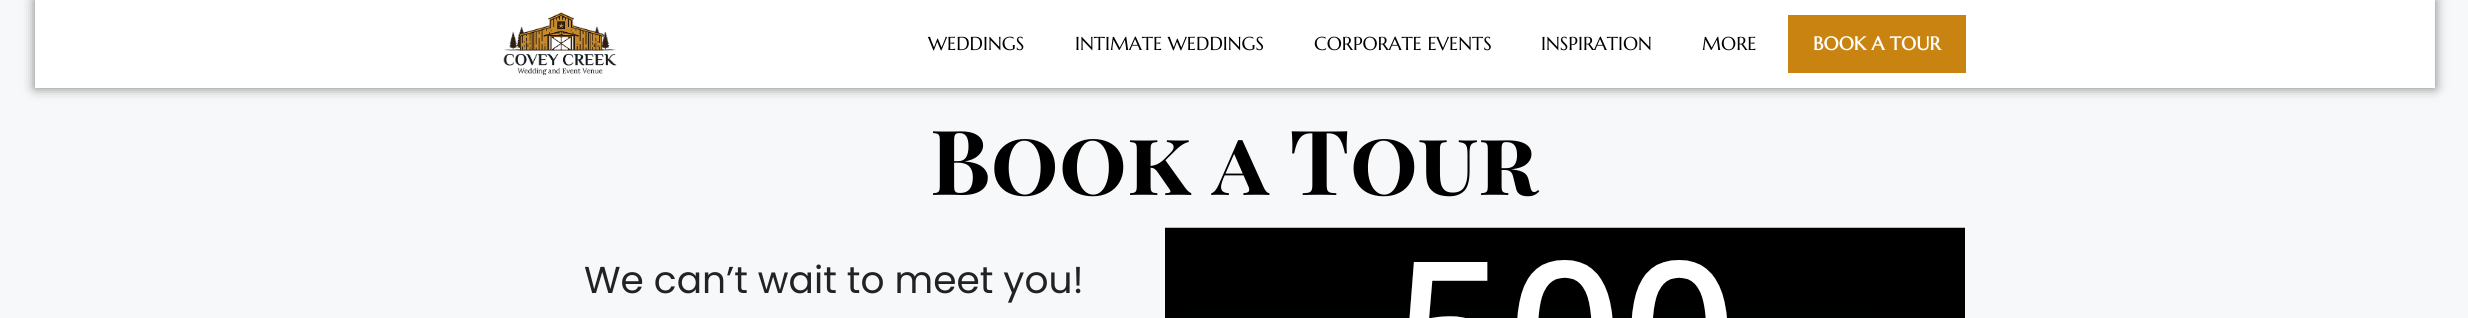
#include <cairo.h>
#include <math.h>
#include <stddef.h>

static cairo_t *ctx;

static void use_color(int r, int g, int b) {
    cairo_set_source_rgb(ctx, r / 255.0, g / 255.0, b / 255.0);
}

static void round_rect(double x, double y, double w, double h, double r) {
    cairo_new_sub_path(ctx);
    cairo_arc(ctx, x + w - r, y + h - r, r, 0, M_PI / 2);
    cairo_arc(ctx, x + r, y + h - r, r, M_PI / 2, M_PI);
    cairo_arc(ctx, x + r, y + r, r, M_PI, 1.5 * M_PI);
    cairo_arc(ctx, x + w - r, y + r, r, 1.5 * M_PI, 2 * M_PI);
    cairo_close_path(ctx);
}

static void shadow(double x, double y, double w, double h, double r, double blur, double alpha) {
    cairo_push_group_with_content(ctx, CAIRO_CONTENT_ALPHA);
    cairo_set_operator(ctx, CAIRO_OPERATOR_SOURCE);
    for (int i = 15; i >= -15 && fmin(w, h) + blur * i / 3 > 0; i -= 2) {
        double e = blur * i / 6;
        cairo_set_source_rgba(ctx, 0, 0, 0, alpha * erfc((i - 1) / 8.5) / 2);
        round_rect(x - e, y - e, w + 2 * e, h + 2 * e, fmax(0, fmin(r + e + blur * .6, fmin(w, h) / 2 + e)));
        cairo_fill(ctx);
    }
    cairo_pattern_t *soft = cairo_pop_group(ctx);
    cairo_mask(ctx, soft);
    cairo_pattern_destroy(soft);
}

static void picture(const char *path, double x, double y, double w, double h) {
    cairo_surface_t *image = cairo_image_surface_create_from_png(path);
    cairo_save(ctx);
    cairo_set_source_surface(ctx, image, x, y);
    cairo_rectangle(ctx, x, y, w, h);
    cairo_fill(ctx);
    cairo_restore(ctx);
    cairo_surface_destroy(image);
}

int main(void) {
    cairo_surface_t *surface = cairo_image_surface_create(CAIRO_FORMAT_RGB24, 2468, 318);
    ctx = cairo_create(surface);
    cairo_font_options_t *options = cairo_font_options_create();
    cairo_font_options_set_hint_metrics(options, CAIRO_HINT_METRICS_OFF);
    cairo_font_options_set_hint_style(options, CAIRO_HINT_STYLE_NONE);
    cairo_set_font_options(ctx, options);
    cairo_set_miter_limit(ctx, 4);
    use_color(247, 248, 249);
    cairo_paint(ctx);
    use_color(0, 0, 0);
    shadow(35, 0, 2400, 88, 0, 6, 0.5);
    use_color(255, 255, 255);
    cairo_rectangle(ctx, 35, 0, 2400, 88);
    cairo_fill(ctx);
    picture("img1.png", 503, 12, 114, 63);
    cairo_select_font_face(ctx, "Marcellus", CAIRO_FONT_SLANT_NORMAL, CAIRO_FONT_WEIGHT_NORMAL);
    cairo_set_font_size(ctx, 18.75);
    use_color(0, 0, 0);
    cairo_move_to(ctx, 928, 50);
    cairo_show_text(ctx, "WEDDINGS");
    cairo_move_to(ctx, 1075, 50);
    cairo_show_text(ctx, "INTIMATE WEDDINGS");
    cairo_move_to(ctx, 1314, 50);
    cairo_show_text(ctx, "CORPORATE EVENTS");
    cairo_move_to(ctx, 1541, 50);
    cairo_show_text(ctx, "INSPIRATION");
    cairo_move_to(ctx, 1702, 50);
    cairo_show_text(ctx, "MORE");
    use_color(201, 131, 17);
    cairo_rectangle(ctx, 1788, 15, 178, 58);
    cairo_fill(ctx);
    cairo_select_font_face(ctx, "Marcellus", CAIRO_FONT_SLANT_NORMAL, CAIRO_FONT_WEIGHT_BOLD);
    use_color(255, 255, 255);
    cairo_move_to(ctx, 1813, 50);
    cairo_show_text(ctx, "BOOK A TOUR");
    cairo_select_font_face(ctx, "Playfair Display SC", CAIRO_FONT_SLANT_NORMAL, CAIRO_FONT_WEIGHT_BOLD);
    cairo_set_font_size(ctx, 90);
    use_color(0, 0, 0);
    cairo_move_to(ctx, 930, 195);
    cairo_show_text(ctx, "Book a Tour");
    cairo_select_font_face(ctx, "Poppins", CAIRO_FONT_SLANT_NORMAL, CAIRO_FONT_WEIGHT_NORMAL);
    cairo_set_font_size(ctx, 37.5);
    use_color(34, 34, 34);
    cairo_move_to(ctx, 584, 293);
    cairo_show_text(ctx, "We can’t wait to meet you!");
    picture("img2.png", 1165, 227, 800, 91);
    cairo_surface_write_to_png(surface, "result.png");
    cairo_font_options_destroy(options);
    cairo_destroy(ctx);
    cairo_surface_destroy(surface);
    return 0;
}
